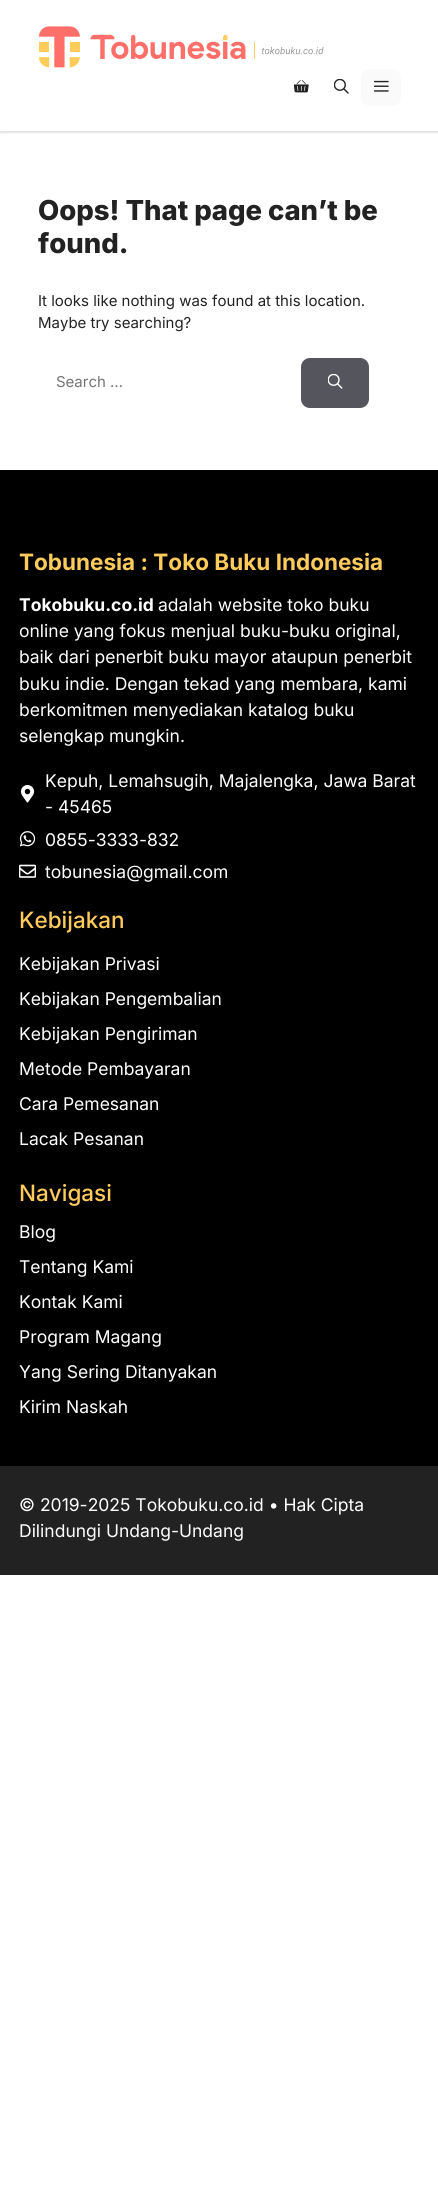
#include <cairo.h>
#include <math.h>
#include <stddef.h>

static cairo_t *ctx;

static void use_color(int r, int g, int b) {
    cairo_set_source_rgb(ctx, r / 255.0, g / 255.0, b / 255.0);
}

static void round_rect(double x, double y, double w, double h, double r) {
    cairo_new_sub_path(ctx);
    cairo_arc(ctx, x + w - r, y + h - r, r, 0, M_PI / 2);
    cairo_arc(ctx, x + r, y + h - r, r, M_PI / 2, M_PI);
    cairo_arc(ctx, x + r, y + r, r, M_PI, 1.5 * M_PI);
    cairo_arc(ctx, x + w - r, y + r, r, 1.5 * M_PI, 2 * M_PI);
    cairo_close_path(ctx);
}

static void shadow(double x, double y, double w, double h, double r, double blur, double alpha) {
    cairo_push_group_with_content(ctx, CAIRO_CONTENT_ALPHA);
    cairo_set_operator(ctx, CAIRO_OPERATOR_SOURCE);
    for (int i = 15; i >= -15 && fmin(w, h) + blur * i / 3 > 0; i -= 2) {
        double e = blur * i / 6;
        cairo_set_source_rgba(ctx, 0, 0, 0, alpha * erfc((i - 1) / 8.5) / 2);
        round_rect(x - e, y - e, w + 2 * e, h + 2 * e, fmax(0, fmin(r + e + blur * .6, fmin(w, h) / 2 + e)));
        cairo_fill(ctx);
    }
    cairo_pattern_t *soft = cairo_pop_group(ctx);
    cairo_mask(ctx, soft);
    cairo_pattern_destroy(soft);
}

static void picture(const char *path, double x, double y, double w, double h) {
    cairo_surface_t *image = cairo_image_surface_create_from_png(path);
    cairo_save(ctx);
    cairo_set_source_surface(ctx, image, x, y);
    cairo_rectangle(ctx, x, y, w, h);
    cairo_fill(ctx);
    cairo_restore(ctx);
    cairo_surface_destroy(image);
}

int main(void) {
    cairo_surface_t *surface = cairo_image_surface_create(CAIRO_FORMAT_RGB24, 438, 2202);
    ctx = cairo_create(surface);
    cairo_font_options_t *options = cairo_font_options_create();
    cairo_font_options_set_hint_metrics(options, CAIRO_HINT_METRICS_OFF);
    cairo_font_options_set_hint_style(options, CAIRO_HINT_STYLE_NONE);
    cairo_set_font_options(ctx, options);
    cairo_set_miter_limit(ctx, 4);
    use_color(255, 255, 255);
    cairo_paint(ctx);
    cairo_save(ctx);
    cairo_rectangle(ctx, 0, 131, 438, 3);
    cairo_clip(ctx);
    use_color(0, 0, 0);
    shadow(0, 1, 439, 132, 0, 1, 0.12);
    cairo_restore(ctx);
    picture("img1.png", 39, 26, 285, 42);
    picture("img2.png", 294, 80, 15, 13);
    picture("img3.png", 334, 79, 15, 15);
    use_color(250, 250, 250);
    round_rect(361, 69, 40, 37, 9);
    cairo_fill(ctx);
    picture("img4.png", 374, 80, 15, 12);
    cairo_select_font_face(ctx, "Inter ExtraBold", CAIRO_FONT_SLANT_NORMAL, CAIRO_FONT_WEIGHT_NORMAL);
    cairo_set_font_size(ctx, 27.5);
    use_color(34, 34, 34);
    cairo_move_to(ctx, 38, 220);
    cairo_show_text(ctx, "Oops! That page can’t be");
    cairo_move_to(ctx, 38, 253);
    cairo_show_text(ctx, "found.");
    cairo_select_font_face(ctx, "Inter", CAIRO_FONT_SLANT_NORMAL, CAIRO_FONT_WEIGHT_NORMAL);
    cairo_set_font_size(ctx, 15);
    cairo_move_to(ctx, 38, 306);
    cairo_show_text(ctx, "It looks like nothing was found at this location.");
    cairo_move_to(ctx, 38, 328);
    cairo_show_text(ctx, "Maybe try searching?");
    use_color(117, 117, 117);
    cairo_move_to(ctx, 56, 387);
    cairo_show_text(ctx, "Search …");
    use_color(85, 85, 94);
    round_rect(301, 358, 68, 50, 9);
    cairo_fill(ctx);
    picture("img5.png", 328, 374, 15, 15);
    use_color(0, 0, 0);
    cairo_rectangle(ctx, 0, 470, 438, 996);
    cairo_fill(ctx);
    cairo_select_font_face(ctx, "Inter", CAIRO_FONT_SLANT_NORMAL, CAIRO_FONT_WEIGHT_BOLD);
    cairo_set_font_size(ctx, 22.5);
    use_color(255, 204, 92);
    cairo_move_to(ctx, 19, 570);
    cairo_show_text(ctx, "Tobunesia : Toko Buku Indonesia");
    cairo_set_font_size(ctx, 17.5);
    use_color(255, 255, 255);
    cairo_move_to(ctx, 19, 611);
    cairo_show_text(ctx, "Tokobuku.co.id");
    cairo_select_font_face(ctx, "Inter", CAIRO_FONT_SLANT_NORMAL, CAIRO_FONT_WEIGHT_NORMAL);
    cairo_move_to(ctx, 158, 611);
    cairo_show_text(ctx, "adalah website toko buku");
    cairo_move_to(ctx, 19, 637);
    cairo_show_text(ctx, "online yang fokus menjual buku-buku original,");
    cairo_move_to(ctx, 19, 663);
    cairo_show_text(ctx, "baik dari penerbit buku mayor ataupun penerbit");
    cairo_move_to(ctx, 19, 690);
    cairo_show_text(ctx, "buku indie. Dengan tekad yang membara, kami");
    cairo_move_to(ctx, 19, 716);
    cairo_show_text(ctx, "berkomitmen menyediakan katalog buku");
    cairo_move_to(ctx, 19, 742);
    cairo_show_text(ctx, "selengkap mungkin.");
    picture("img6.png", 20, 785, 15, 18);
    cairo_move_to(ctx, 45, 787);
    cairo_show_text(ctx, "Kepuh, Lemahsugih, Majalengka, Jawa Barat");
    cairo_move_to(ctx, 45, 813);
    cairo_show_text(ctx, "- 45465");
    picture("img7.png", 19, 831, 17, 16);
    cairo_move_to(ctx, 45, 846);
    cairo_show_text(ctx, "0855-3333-832");
    picture("img8.png", 19, 864, 17, 14);
    cairo_move_to(ctx, 45, 878);
    cairo_show_text(ctx, "tobunesia@gmail.com");
    cairo_select_font_face(ctx, "Inter Medium", CAIRO_FONT_SLANT_NORMAL, CAIRO_FONT_WEIGHT_NORMAL);
    cairo_set_font_size(ctx, 22.5);
    use_color(255, 204, 92);
    cairo_move_to(ctx, 19, 928);
    cairo_show_text(ctx, "Kebijakan");
    cairo_select_font_face(ctx, "Inter", CAIRO_FONT_SLANT_NORMAL, CAIRO_FONT_WEIGHT_NORMAL);
    cairo_set_font_size(ctx, 17.5);
    use_color(255, 255, 255);
    cairo_move_to(ctx, 19, 970);
    cairo_show_text(ctx, "Kebijakan Privasi");
    cairo_move_to(ctx, 19, 1005);
    cairo_show_text(ctx, "Kebijakan Pengembalian");
    cairo_move_to(ctx, 19, 1040);
    cairo_show_text(ctx, "Kebijakan Pengiriman");
    cairo_move_to(ctx, 19, 1075);
    cairo_show_text(ctx, "Metode Pembayaran");
    cairo_move_to(ctx, 19, 1110);
    cairo_show_text(ctx, "Cara Pemesanan");
    cairo_move_to(ctx, 19, 1145);
    cairo_show_text(ctx, "Lacak Pesanan");
    cairo_select_font_face(ctx, "Inter Medium", CAIRO_FONT_SLANT_NORMAL, CAIRO_FONT_WEIGHT_NORMAL);
    cairo_set_font_size(ctx, 22.5);
    use_color(255, 204, 92);
    cairo_move_to(ctx, 19, 1201);
    cairo_show_text(ctx, "Navigasi");
    cairo_select_font_face(ctx, "Inter", CAIRO_FONT_SLANT_NORMAL, CAIRO_FONT_WEIGHT_NORMAL);
    cairo_set_font_size(ctx, 17.5);
    use_color(255, 255, 255);
    cairo_move_to(ctx, 19, 1238);
    cairo_show_text(ctx, "Blog");
    cairo_move_to(ctx, 19, 1273);
    cairo_show_text(ctx, "Tentang Kami");
    cairo_move_to(ctx, 19, 1308);
    cairo_show_text(ctx, "Kontak Kami");
    cairo_move_to(ctx, 19, 1343);
    cairo_show_text(ctx, "Program Magang");
    cairo_move_to(ctx, 19, 1378);
    cairo_show_text(ctx, "Yang Sering Ditanyakan");
    cairo_move_to(ctx, 19, 1413);
    cairo_show_text(ctx, "Kirim Naskah");
    use_color(34, 34, 34);
    cairo_rectangle(ctx, 0, 1466, 438, 109);
    cairo_fill(ctx);
    use_color(255, 255, 255);
    cairo_move_to(ctx, 19, 1511);
    cairo_show_text(ctx, "© 2019-2025 Tokobuku.co.id • Hak Cipta");
    cairo_move_to(ctx, 19, 1537);
    cairo_show_text(ctx, "Dilindungi Undang-Undang");
    cairo_surface_write_to_png(surface, "result.png");
    cairo_font_options_destroy(options);
    cairo_destroy(ctx);
    cairo_surface_destroy(surface);
    return 0;
}
